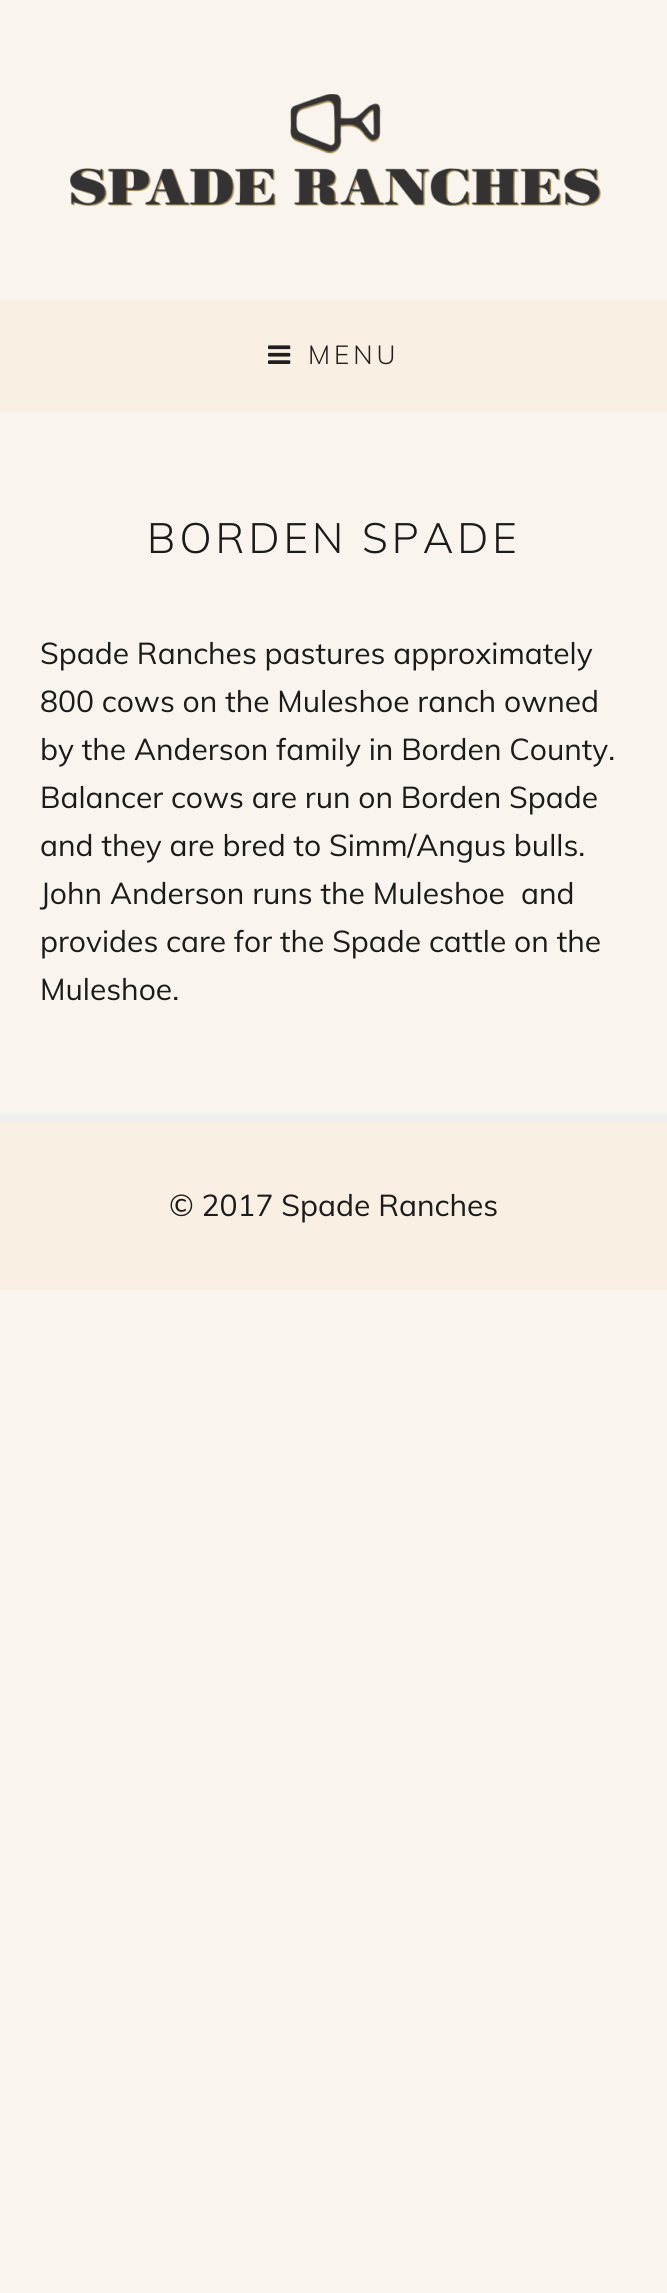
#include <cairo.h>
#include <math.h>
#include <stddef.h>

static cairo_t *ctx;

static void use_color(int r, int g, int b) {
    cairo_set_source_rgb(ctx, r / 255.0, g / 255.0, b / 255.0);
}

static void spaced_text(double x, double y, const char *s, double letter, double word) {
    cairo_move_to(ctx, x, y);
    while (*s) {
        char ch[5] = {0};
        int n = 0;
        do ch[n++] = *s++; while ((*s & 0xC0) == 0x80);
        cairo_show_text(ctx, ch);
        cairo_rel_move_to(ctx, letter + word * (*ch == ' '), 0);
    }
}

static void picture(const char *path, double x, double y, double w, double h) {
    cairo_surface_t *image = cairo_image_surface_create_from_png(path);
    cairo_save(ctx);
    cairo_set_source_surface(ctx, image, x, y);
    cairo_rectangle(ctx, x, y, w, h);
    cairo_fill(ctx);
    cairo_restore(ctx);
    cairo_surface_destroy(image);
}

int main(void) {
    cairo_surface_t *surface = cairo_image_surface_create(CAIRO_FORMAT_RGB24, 667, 2293);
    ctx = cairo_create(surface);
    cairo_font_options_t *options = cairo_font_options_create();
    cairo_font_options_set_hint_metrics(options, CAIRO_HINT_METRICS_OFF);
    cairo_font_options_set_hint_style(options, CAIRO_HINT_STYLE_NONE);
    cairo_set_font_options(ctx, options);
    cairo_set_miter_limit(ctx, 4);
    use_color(249, 244, 237);
    cairo_paint(ctx);
    picture("img1.png", 70, 94, 531, 112);
    use_color(249, 240, 227);
    cairo_rectangle(ctx, 0, 300, 667, 112);
    cairo_fill(ctx);
    picture("img2.png", 268, 345, 23, 19);
    cairo_select_font_face(ctx, "Muli Light", CAIRO_FONT_SLANT_NORMAL, CAIRO_FONT_WEIGHT_NORMAL);
    cairo_set_font_size(ctx, 26);
    use_color(33, 30, 31);
    spaced_text(308, 364, "MENU", 4, 0);
    cairo_set_font_size(ctx, 42);
    use_color(27, 27, 27);
    spaced_text(147, 553, "BORDEN SPADE", 4, 0);
    cairo_select_font_face(ctx, "Muli", CAIRO_FONT_SLANT_NORMAL, CAIRO_FONT_WEIGHT_NORMAL);
    cairo_set_font_size(ctx, 30);
    cairo_move_to(ctx, 40, 664);
    cairo_show_text(ctx, "Spade Ranches pastures approximately");
    cairo_move_to(ctx, 40, 712);
    cairo_show_text(ctx, "800 cows on the Muleshoe ranch owned");
    cairo_move_to(ctx, 40, 760);
    cairo_show_text(ctx, "by the Anderson family in Borden County.");
    cairo_move_to(ctx, 40, 808);
    cairo_show_text(ctx, "Balancer cows are run on Borden Spade");
    cairo_move_to(ctx, 40, 856);
    cairo_show_text(ctx, "and they are bred to Simm/Angus bulls.");
    cairo_move_to(ctx, 40, 904);
    cairo_show_text(ctx, "John Anderson runs the Muleshoe");
    cairo_move_to(ctx, 521, 904);
    cairo_show_text(ctx, "and");
    cairo_move_to(ctx, 40, 952);
    cairo_show_text(ctx, "provides care for the Spade cattle on the");
    cairo_move_to(ctx, 40, 1000);
    cairo_show_text(ctx, "Muleshoe.");
    use_color(239, 239, 239);
    cairo_rectangle(ctx, 0, 1114, 667, 8);
    cairo_fill(ctx);
    use_color(249, 240, 227);
    cairo_rectangle(ctx, 0, 1122, 667, 168);
    cairo_fill(ctx);
    use_color(27, 27, 27);
    cairo_move_to(ctx, 169, 1216);
    cairo_show_text(ctx, "© 2017 Spade Ranches");
    cairo_surface_write_to_png(surface, "result.png");
    cairo_font_options_destroy(options);
    cairo_destroy(ctx);
    cairo_surface_destroy(surface);
    return 0;
}
